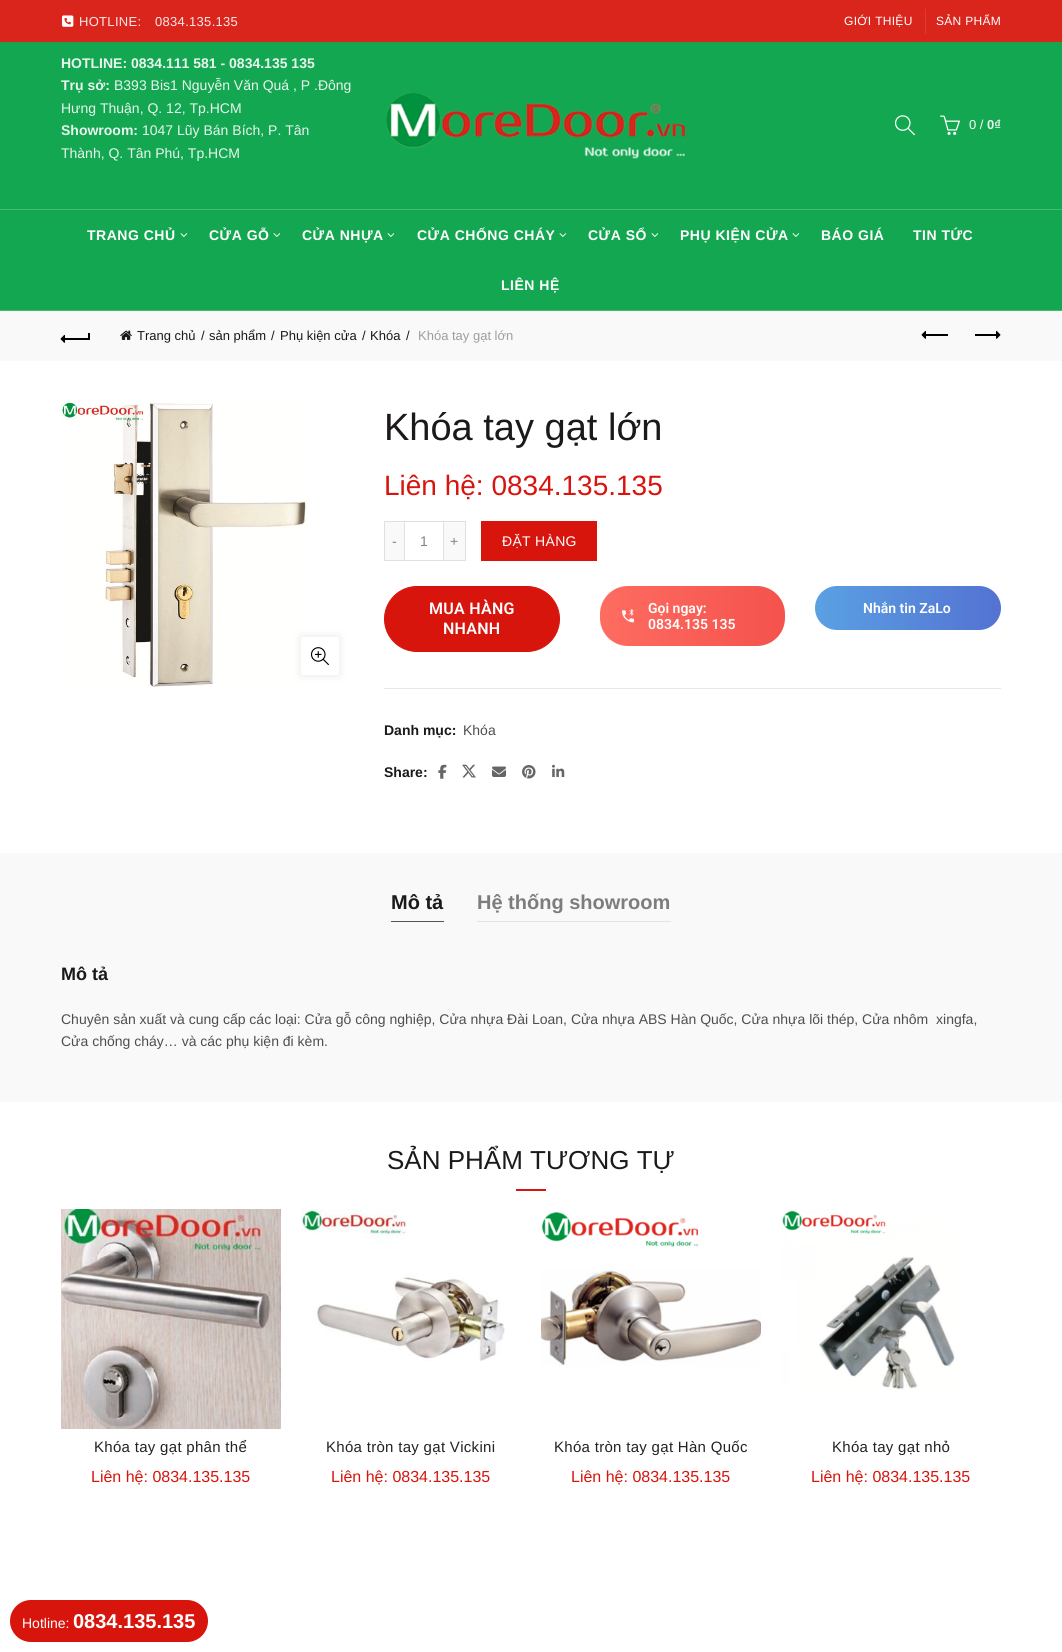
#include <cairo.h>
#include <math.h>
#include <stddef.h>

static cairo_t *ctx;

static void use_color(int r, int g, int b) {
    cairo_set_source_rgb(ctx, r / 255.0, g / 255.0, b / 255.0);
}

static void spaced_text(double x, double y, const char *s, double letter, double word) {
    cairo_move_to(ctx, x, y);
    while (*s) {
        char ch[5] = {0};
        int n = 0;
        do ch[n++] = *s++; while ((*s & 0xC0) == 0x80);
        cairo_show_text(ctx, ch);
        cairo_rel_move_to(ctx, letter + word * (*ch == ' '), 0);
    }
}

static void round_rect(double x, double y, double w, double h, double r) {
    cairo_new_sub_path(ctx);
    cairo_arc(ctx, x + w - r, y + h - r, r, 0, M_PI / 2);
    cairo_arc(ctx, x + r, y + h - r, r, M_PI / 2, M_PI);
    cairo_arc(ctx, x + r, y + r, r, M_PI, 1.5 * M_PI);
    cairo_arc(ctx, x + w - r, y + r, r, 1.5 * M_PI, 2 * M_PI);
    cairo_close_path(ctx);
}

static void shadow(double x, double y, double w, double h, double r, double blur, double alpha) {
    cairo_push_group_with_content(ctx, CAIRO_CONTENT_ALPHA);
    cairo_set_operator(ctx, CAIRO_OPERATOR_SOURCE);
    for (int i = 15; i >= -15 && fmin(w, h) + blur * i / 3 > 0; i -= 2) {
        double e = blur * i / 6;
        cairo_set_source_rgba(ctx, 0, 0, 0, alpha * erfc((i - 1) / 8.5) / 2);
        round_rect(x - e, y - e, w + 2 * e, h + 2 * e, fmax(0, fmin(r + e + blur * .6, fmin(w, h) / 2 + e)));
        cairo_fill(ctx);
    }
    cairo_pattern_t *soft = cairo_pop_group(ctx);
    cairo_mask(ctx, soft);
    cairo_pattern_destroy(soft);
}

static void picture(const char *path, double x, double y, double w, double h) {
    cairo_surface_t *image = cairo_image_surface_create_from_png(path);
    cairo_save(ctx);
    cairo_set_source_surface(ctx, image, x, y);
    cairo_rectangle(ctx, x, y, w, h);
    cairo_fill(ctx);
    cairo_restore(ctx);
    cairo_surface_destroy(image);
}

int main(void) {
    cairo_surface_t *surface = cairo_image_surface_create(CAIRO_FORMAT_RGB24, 1062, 1652);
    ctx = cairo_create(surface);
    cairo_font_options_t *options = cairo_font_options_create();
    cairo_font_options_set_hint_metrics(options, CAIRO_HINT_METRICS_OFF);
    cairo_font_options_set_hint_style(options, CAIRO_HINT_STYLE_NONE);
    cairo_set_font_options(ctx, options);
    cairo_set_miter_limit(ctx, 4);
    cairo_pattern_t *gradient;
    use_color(255, 255, 255);
    cairo_paint(ctx);
    use_color(218, 37, 29);
    cairo_rectangle(ctx, 0, 0, 1062, 42);
    cairo_fill(ctx);
    picture("img1.png", 62, 15, 12, 12);
    cairo_select_font_face(ctx, "Liberation Sans", CAIRO_FONT_SLANT_NORMAL, CAIRO_FONT_WEIGHT_NORMAL);
    cairo_set_font_size(ctx, 13);
    use_color(251, 233, 232);
    spaced_text(79, 26, "HOTLINE:", 0.3, 0);
    spaced_text(155, 26, "0834.135.135", 0.3, 0);
    cairo_set_font_size(ctx, 12);
    use_color(255, 255, 255);
    spaced_text(844, 25, "GIỚI THIỆU", 0.3, 0);
    use_color(222, 59, 52);
    cairo_rectangle(ctx, 925, 9, 1, 25);
    cairo_fill(ctx);
    use_color(255, 255, 255);
    spaced_text(936, 25, "SẢN PHẨM", 0.3, 0);
    use_color(20, 167, 81);
    cairo_rectangle(ctx, 0, 42, 1062, 268);
    cairo_fill(ctx);
    cairo_select_font_face(ctx, "Liberation Sans", CAIRO_FONT_SLANT_NORMAL, CAIRO_FONT_WEIGHT_BOLD);
    cairo_set_font_size(ctx, 14);
    use_color(232, 246, 238);
    cairo_move_to(ctx, 61, 68);
    cairo_show_text(ctx, "HOTLINE: 0834.111 581 - 0834.135 135");
    cairo_move_to(ctx, 61, 90);
    cairo_show_text(ctx, "Trụ sở:");
    cairo_select_font_face(ctx, "Liberation Sans", CAIRO_FONT_SLANT_NORMAL, CAIRO_FONT_WEIGHT_NORMAL);
    cairo_move_to(ctx, 114, 90);
    cairo_show_text(ctx, "B393 Bis1 Nguyễn Văn Quá , P .Đông");
    cairo_move_to(ctx, 61, 113);
    cairo_show_text(ctx, "Hưng Thuận, Q. 12, Tp.HCM");
    cairo_select_font_face(ctx, "Liberation Sans", CAIRO_FONT_SLANT_NORMAL, CAIRO_FONT_WEIGHT_BOLD);
    cairo_move_to(ctx, 61, 135);
    cairo_show_text(ctx, "Showroom:");
    cairo_select_font_face(ctx, "Liberation Sans", CAIRO_FONT_SLANT_NORMAL, CAIRO_FONT_WEIGHT_NORMAL);
    cairo_move_to(ctx, 142, 135);
    cairo_show_text(ctx, "1047 Lũy Bán Bích, P. Tân");
    cairo_move_to(ctx, 61, 158);
    cairo_show_text(ctx, "Thành, Q. Tân Phú, Tp.HCM");
    picture("img2.png", 386, 93, 299, 66);
    picture("img3.png", 895, 115, 20, 21);
    picture("img4.png", 940, 115, 20, 20);
    cairo_set_font_size(ctx, 13);
    use_color(255, 255, 255);
    cairo_move_to(ctx, 969, 129);
    cairo_show_text(ctx, "0 /");
    cairo_select_font_face(ctx, "Liberation Sans", CAIRO_FONT_SLANT_NORMAL, CAIRO_FONT_WEIGHT_BOLD);
    use_color(232, 246, 238);
    cairo_move_to(ctx, 987, 129);
    cairo_show_text(ctx, "0₫");
    use_color(67, 185, 116);
    cairo_rectangle(ctx, 0, 209, 1062, 1);
    cairo_fill(ctx);
    cairo_rectangle(ctx, 0, 310, 1062, 1);
    cairo_fill(ctx);
    cairo_set_font_size(ctx, 14);
    use_color(255, 255, 255);
    spaced_text(87, 240, "TRANG CHỦ", 0.5, 0);
    picture("img5.png", 180, 233, 8, 4);
    spaced_text(209, 240, "CỬA GỖ", 0.5, 0);
    picture("img5.png", 273, 233, 8, 4);
    spaced_text(302, 240, "CỬA NHỰA", 0.5, 0);
    picture("img5.png", 387, 233, 8, 4);
    spaced_text(417, 240, "CỬA CHỐNG CHÁY", 0.5, 0);
    picture("img5.png", 559, 233, 8, 4);
    spaced_text(588, 240, "CỬA SỔ", 0.5, 0);
    picture("img5.png", 651, 233, 8, 4);
    spaced_text(680, 240, "PHỤ KIỆN CỬA", 0.5, 0);
    picture("img5.png", 792, 233, 8, 4);
    spaced_text(821, 240, "BÁO GIÁ", 0.5, 0);
    spaced_text(913, 240, "TIN TỨC", 0.5, 0);
    spaced_text(501, 290, "LIÊN HỆ", 0.5, 0);
    use_color(249, 249, 249);
    cairo_rectangle(ctx, 0, 311, 1062, 50);
    cairo_fill(ctx);
    use_color(0, 0, 0);
    cairo_rectangle(ctx, 64, 338, 25, 2);
    cairo_fill(ctx);
    picture("img6.png", 60, 334, 5, 9);
    cairo_rectangle(ctx, 88, 333, 2, 7);
    cairo_fill(ctx);
    picture("img7.png", 120, 330, 12, 10);
    cairo_select_font_face(ctx, "Liberation Sans", CAIRO_FONT_SLANT_NORMAL, CAIRO_FONT_WEIGHT_NORMAL);
    cairo_set_font_size(ctx, 13);
    use_color(27, 25, 25);
    cairo_move_to(ctx, 137, 340);
    cairo_show_text(ctx, "Trang chủ");
    cairo_move_to(ctx, 201, 340);
    cairo_show_text(ctx, "/");
    cairo_move_to(ctx, 209, 340);
    cairo_show_text(ctx, "sản phẩm");
    cairo_move_to(ctx, 271, 340);
    cairo_show_text(ctx, "/");
    cairo_move_to(ctx, 280, 340);
    cairo_show_text(ctx, "Phụ kiện cửa");
    cairo_move_to(ctx, 362, 340);
    cairo_show_text(ctx, "/");
    cairo_move_to(ctx, 370, 340);
    cairo_show_text(ctx, "Khóa");
    cairo_move_to(ctx, 406, 340);
    cairo_show_text(ctx, "/");
    use_color(158, 158, 158);
    cairo_move_to(ctx, 418, 340);
    cairo_show_text(ctx, "Khóa tay gạt lớn");
    use_color(0, 0, 0);
    cairo_rectangle(ctx, 925, 334, 23, 2);
    cairo_fill(ctx);
    picture("img6.png", 921, 330, 5, 9);
    cairo_rectangle(ctx, 975, 334, 23, 2);
    cairo_fill(ctx);
    picture("img8.png", 996, 330, 5, 9);
    picture("img9.png", 61, 401, 246, 286);
    use_color(0, 0, 0);
    shadow(301, 637, 38, 38, 0, 4.5, 0.1);
    use_color(255, 255, 255);
    cairo_rectangle(ctx, 301, 637, 38, 38);
    cairo_fill(ctx);
    picture("img10.png", 310, 647, 19, 19);
    cairo_set_font_size(ctx, 38);
    use_color(27, 25, 25);
    cairo_move_to(ctx, 384, 440);
    cairo_show_text(ctx, "Khóa tay gạt lớn");
    cairo_set_font_size(ctx, 28);
    use_color(215, 21, 13);
    cairo_move_to(ctx, 384, 495);
    cairo_show_text(ctx, "Liên hệ: 0834.135.135");
    use_color(249, 249, 249);
    cairo_rectangle(ctx, 385, 522, 19, 38);
    cairo_fill(ctx);
    use_color(224, 224, 224);
    cairo_rectangle(ctx, 384, 521, 20, 1);
    cairo_fill(ctx);
    cairo_rectangle(ctx, 384, 560, 20, 1);
    cairo_fill(ctx);
    cairo_rectangle(ctx, 384, 521, 1, 40);
    cairo_fill(ctx);
    cairo_set_font_size(ctx, 14);
    use_color(132, 132, 132);
    cairo_move_to(ctx, 392, 546);
    cairo_show_text(ctx, "-");
    cairo_rectangle(ctx, 404.5, 521.5, 39, 39);
    use_color(224, 224, 224);
    cairo_set_line_width(ctx, 1);
    cairo_stroke(ctx);
    use_color(132, 132, 132);
    cairo_move_to(ctx, 420, 546);
    cairo_show_text(ctx, "1");
    use_color(249, 249, 249);
    cairo_rectangle(ctx, 444, 522, 21, 38);
    cairo_fill(ctx);
    use_color(224, 224, 224);
    cairo_rectangle(ctx, 444, 521, 22, 1);
    cairo_fill(ctx);
    cairo_rectangle(ctx, 465, 521, 1, 40);
    cairo_fill(ctx);
    cairo_rectangle(ctx, 444, 560, 22, 1);
    cairo_fill(ctx);
    use_color(132, 132, 132);
    cairo_move_to(ctx, 450, 546);
    cairo_show_text(ctx, "+");
    use_color(215, 21, 13);
    cairo_rectangle(ctx, 481, 521, 116, 40);
    cairo_fill(ctx);
    use_color(255, 255, 255);
    spaced_text(502, 546, "ĐẶT HÀNG", 0.3, 0);
    use_color(215, 21, 13);
    round_rect(384.5, 586.5, 175, 65, 32.5);
    cairo_fill_preserve(ctx);
    cairo_stroke(ctx);
    cairo_select_font_face(ctx, "Roboto SemiBold", CAIRO_FONT_SLANT_NORMAL, CAIRO_FONT_WEIGHT_NORMAL);
    cairo_set_font_size(ctx, 16);
    use_color(255, 255, 255);
    spaced_text(429, 614, "MUA HÀNG", 0.3, 0);
    spaced_text(443, 634, "NHANH", 0.3, 0);
    gradient = cairo_pattern_create_linear(600, 616, 970, 616);
    cairo_pattern_add_color_stop_rgba(gradient, 0, 0.996, 0.424, 0.38, 1);
    cairo_pattern_add_color_stop_rgba(gradient, 0.5, 0.957, 0.322, 0.302, 1);
    cairo_pattern_add_color_stop_rgba(gradient, 1, 0.996, 0.424, 0.38, 1);
    cairo_set_source(ctx, gradient);
    cairo_pattern_destroy(gradient);
    round_rect(600, 586, 185, 60, 28);
    cairo_fill(ctx);
    picture("img11.png", 622, 609, 12, 14);
    cairo_set_font_size(ctx, 14);
    use_color(255, 255, 255);
    cairo_move_to(ctx, 648, 613);
    cairo_show_text(ctx, "Gọi ngay:");
    cairo_move_to(ctx, 648, 629);
    cairo_show_text(ctx, "0834.135 135");
    gradient = cairo_pattern_create_linear(815, 608, 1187, 608);
    cairo_pattern_add_color_stop_rgba(gradient, 0, 0.353, 0.631, 0.89, 1);
    cairo_pattern_add_color_stop_rgba(gradient, 0.5, 0.329, 0.447, 0.824, 1);
    cairo_pattern_add_color_stop_rgba(gradient, 1, 0.353, 0.631, 0.89, 1);
    cairo_set_source(ctx, gradient);
    cairo_pattern_destroy(gradient);
    round_rect(815, 586, 186, 44, 22);
    cairo_fill(ctx);
    use_color(255, 255, 255);
    cairo_move_to(ctx, 863, 613);
    cairo_show_text(ctx, "Nhắn tin ZaLo");
    use_color(232, 232, 232);
    cairo_rectangle(ctx, 384, 688, 617, 1);
    cairo_fill(ctx);
    cairo_select_font_face(ctx, "Liberation Sans", CAIRO_FONT_SLANT_NORMAL, CAIRO_FONT_WEIGHT_BOLD);
    use_color(27, 25, 25);
    cairo_move_to(ctx, 384, 735);
    cairo_show_text(ctx, "Danh mục:");
    cairo_select_font_face(ctx, "Liberation Sans", CAIRO_FONT_SLANT_NORMAL, CAIRO_FONT_WEIGHT_NORMAL);
    use_color(78, 78, 78);
    cairo_move_to(ctx, 463, 735);
    cairo_show_text(ctx, "Khóa");
    cairo_select_font_face(ctx, "Liberation Sans", CAIRO_FONT_SLANT_NORMAL, CAIRO_FONT_WEIGHT_BOLD);
    use_color(27, 25, 25);
    cairo_move_to(ctx, 384, 777);
    cairo_show_text(ctx, "Share:");
    picture("img12.png", 438, 764, 9, 15);
    picture("img13.png", 462, 764, 14, 14);
    picture("img14.png", 492, 766, 14, 11);
    picture("img15.png", 522, 765, 14, 14);
    picture("img16.png", 552, 764, 13, 13);
    use_color(249, 249, 249);
    cairo_rectangle(ctx, 0, 853, 1062, 249);
    cairo_fill(ctx);
    use_color(84, 84, 84);
    cairo_rectangle(ctx, 391, 921, 53, 1);
    cairo_fill(ctx);
    cairo_set_font_size(ctx, 20);
    use_color(27, 25, 25);
    cairo_move_to(ctx, 391, 909);
    cairo_show_text(ctx, "Mô tả");
    use_color(228, 228, 228);
    cairo_rectangle(ctx, 477, 921, 194, 1);
    cairo_fill(ctx);
    use_color(125, 125, 125);
    cairo_move_to(ctx, 477, 909);
    cairo_show_text(ctx, "Hệ thống showroom");
    cairo_set_font_size(ctx, 18);
    use_color(27, 25, 25);
    cairo_move_to(ctx, 61, 980);
    cairo_show_text(ctx, "Mô tả");
    cairo_select_font_face(ctx, "Liberation Sans", CAIRO_FONT_SLANT_NORMAL, CAIRO_FONT_WEIGHT_NORMAL);
    cairo_set_font_size(ctx, 14);
    use_color(78, 78, 78);
    cairo_move_to(ctx, 61, 1024);
    cairo_show_text(ctx, "Chuyên sản xuất và cung cấp các loại: Cửa gỗ công nghiệp, Cửa nhựa Đài Loan, Cửa nhựa ABS Hàn Quốc, Cửa nhựa lõi thép, Cửa nhôm  xingfa,");
    cairo_move_to(ctx, 61, 1046);
    cairo_show_text(ctx, "Cửa chống cháy… và các phụ kiện đi kèm.");
    cairo_set_font_size(ctx, 26);
    use_color(27, 25, 25);
    cairo_move_to(ctx, 387, 1169);
    cairo_show_text(ctx, "SẢN PHẨM TƯƠNG TỰ");
    use_color(215, 21, 13);
    cairo_rectangle(ctx, 516, 1189, 30, 2);
    cairo_fill(ctx);
    picture("img17.png", 61, 1209, 220, 220);
    cairo_set_font_size(ctx, 15);
    use_color(37, 34, 34);
    spaced_text(94, 1452, "Khóa tay gạt phân thể", 0.3, 0);
    cairo_set_font_size(ctx, 16);
    use_color(215, 21, 13);
    cairo_move_to(ctx, 91, 1482);
    cairo_show_text(ctx, "Liên hệ: 0834.135.135");
    picture("img18.png", 301, 1209, 204, 152);
    cairo_set_font_size(ctx, 15);
    use_color(37, 34, 34);
    spaced_text(326, 1452, "Khóa tròn tay gạt Vickini", 0.3, 0);
    cairo_set_font_size(ctx, 16);
    use_color(215, 21, 13);
    cairo_move_to(ctx, 331, 1482);
    cairo_show_text(ctx, "Liên hệ: 0834.135.135");
    picture("img19.png", 541, 1212, 220, 154);
    cairo_set_font_size(ctx, 15);
    use_color(37, 34, 34);
    spaced_text(554, 1452, "Khóa tròn tay gạt Hàn Quốc", 0.3, 0);
    cairo_set_font_size(ctx, 16);
    use_color(215, 21, 13);
    cairo_move_to(ctx, 571, 1482);
    cairo_show_text(ctx, "Liên hệ: 0834.135.135");
    picture("img20.png", 782, 1210, 173, 180);
    cairo_set_font_size(ctx, 15);
    use_color(37, 34, 34);
    spaced_text(832, 1452, "Khóa tay gạt nhỏ", 0.3, 0);
    cairo_set_font_size(ctx, 16);
    use_color(215, 21, 13);
    cairo_move_to(ctx, 811, 1482);
    cairo_show_text(ctx, "Liên hệ: 0834.135.135");
    round_rect(10, 1600, 198, 42, 21);
    cairo_fill(ctx);
    cairo_set_font_size(ctx, 14);
    use_color(255, 255, 255);
    cairo_move_to(ctx, 22, 1628);
    cairo_show_text(ctx, "Hotline:");
    cairo_select_font_face(ctx, "Liberation Sans", CAIRO_FONT_SLANT_NORMAL, CAIRO_FONT_WEIGHT_BOLD);
    cairo_set_font_size(ctx, 20);
    cairo_move_to(ctx, 73, 1628);
    cairo_show_text(ctx, "0834.135.135");
    cairo_surface_write_to_png(surface, "result.png");
    cairo_font_options_destroy(options);
    cairo_destroy(ctx);
    cairo_surface_destroy(surface);
    return 0;
}
